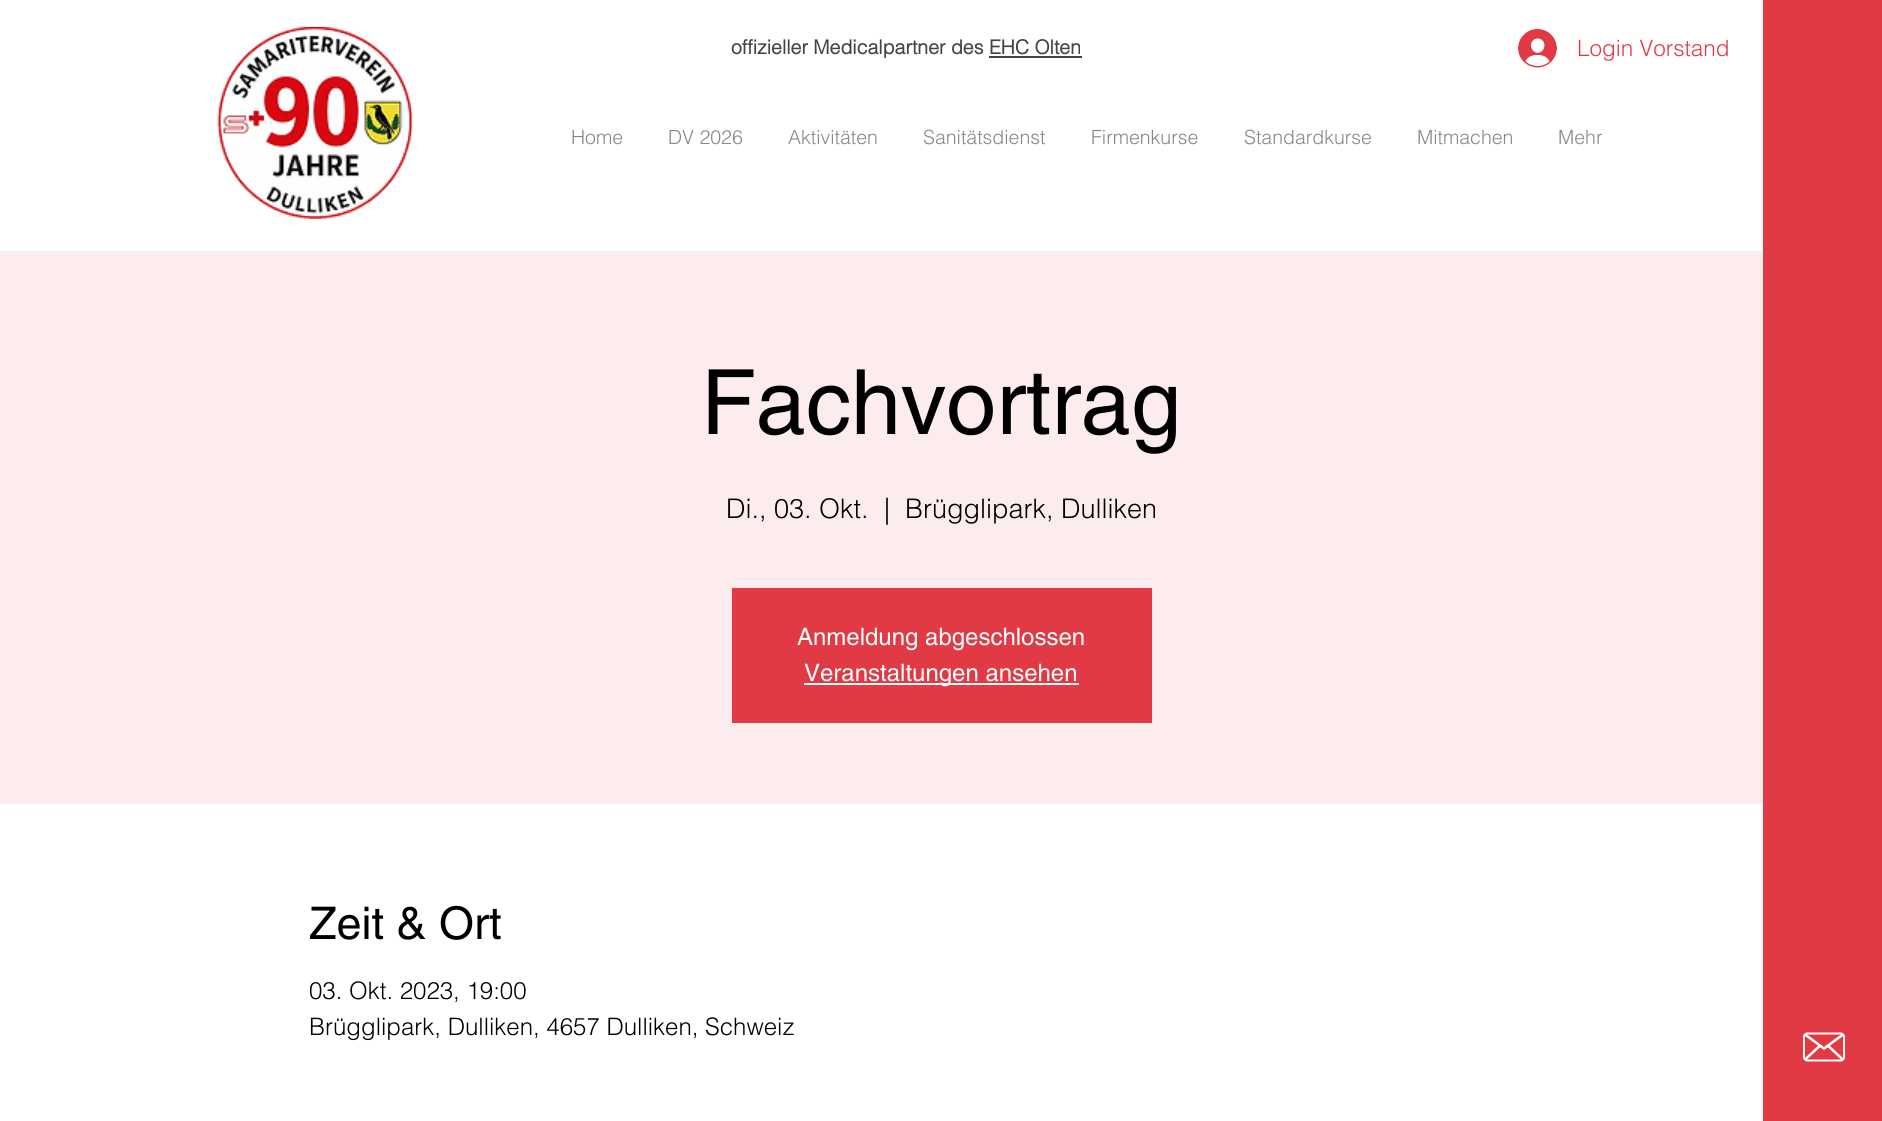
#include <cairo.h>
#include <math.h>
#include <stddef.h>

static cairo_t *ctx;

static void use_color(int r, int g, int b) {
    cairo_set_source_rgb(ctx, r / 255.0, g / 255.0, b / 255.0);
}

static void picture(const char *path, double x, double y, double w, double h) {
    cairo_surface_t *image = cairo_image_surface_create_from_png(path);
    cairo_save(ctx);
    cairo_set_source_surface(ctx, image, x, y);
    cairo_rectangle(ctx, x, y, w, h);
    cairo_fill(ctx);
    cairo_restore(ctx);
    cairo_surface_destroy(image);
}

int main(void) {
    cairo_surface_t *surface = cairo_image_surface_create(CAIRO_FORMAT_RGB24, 1882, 1121);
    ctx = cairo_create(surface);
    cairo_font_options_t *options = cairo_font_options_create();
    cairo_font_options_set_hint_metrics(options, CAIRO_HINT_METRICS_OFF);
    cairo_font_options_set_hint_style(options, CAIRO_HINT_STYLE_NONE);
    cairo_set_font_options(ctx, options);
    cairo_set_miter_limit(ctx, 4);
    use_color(255, 255, 255);
    cairo_paint(ctx);
    picture("img1.png", 217, 27, 196, 192);
    cairo_select_font_face(ctx, "helvetica", CAIRO_FONT_SLANT_NORMAL, CAIRO_FONT_WEIGHT_BOLD);
    cairo_set_font_size(ctx, 19.5);
    use_color(68, 68, 68);
    cairo_move_to(ctx, 731, 54);
    cairo_show_text(ctx, "offizieller Medicalpartner des EHC Olten");
    cairo_rectangle(ctx, 989, 56, 93, 2);
    cairo_fill(ctx);
    picture("img2.png", 1518, 29, 39, 39);
    cairo_select_font_face(ctx, "helvetica Light", CAIRO_FONT_SLANT_NORMAL, CAIRO_FONT_WEIGHT_NORMAL);
    cairo_set_font_size(ctx, 22.5);
    use_color(225, 58, 68);
    cairo_move_to(ctx, 1577, 56);
    cairo_show_text(ctx, "Login Vorstand");
    cairo_set_font_size(ctx, 19.5);
    use_color(136, 136, 136);
    cairo_move_to(ctx, 571, 144);
    cairo_show_text(ctx, "Home");
    cairo_move_to(ctx, 668, 144);
    cairo_show_text(ctx, "DV 2026");
    cairo_move_to(ctx, 788, 144);
    cairo_show_text(ctx, "Aktivitäten");
    cairo_move_to(ctx, 923, 144);
    cairo_show_text(ctx, "Sanitätsdienst");
    cairo_move_to(ctx, 1091, 144);
    cairo_show_text(ctx, "Firmenkurse");
    cairo_move_to(ctx, 1244, 144);
    cairo_show_text(ctx, "Standardkurse");
    cairo_move_to(ctx, 1417, 144);
    cairo_show_text(ctx, "Mitmachen");
    cairo_move_to(ctx, 1558, 144);
    cairo_show_text(ctx, "Mehr");
    use_color(225, 58, 68);
    cairo_rectangle(ctx, 1763, 0, 119, 1121);
    cairo_fill(ctx);
    use_color(253, 236, 237);
    cairo_rectangle(ctx, 0, 251, 1763, 553);
    cairo_fill(ctx);
    cairo_select_font_face(ctx, "helvetica", CAIRO_FONT_SLANT_NORMAL, CAIRO_FONT_WEIGHT_NORMAL);
    cairo_set_font_size(ctx, 90);
    use_color(0, 0, 0);
    cairo_move_to(ctx, 701, 434);
    cairo_show_text(ctx, "Fachvortrag");
    cairo_select_font_face(ctx, "helvetica Light", CAIRO_FONT_SLANT_NORMAL, CAIRO_FONT_WEIGHT_NORMAL);
    cairo_set_font_size(ctx, 27);
    cairo_move_to(ctx, 726, 518);
    cairo_show_text(ctx, "Di., 03. Okt.");
    cairo_move_to(ctx, 884, 518);
    cairo_show_text(ctx, "|");
    cairo_move_to(ctx, 905, 518);
    cairo_show_text(ctx, "Brügglipark, Dulliken");
    use_color(225, 58, 68);
    cairo_rectangle(ctx, 732, 588, 420, 135);
    cairo_fill(ctx);
    cairo_select_font_face(ctx, "helvetica", CAIRO_FONT_SLANT_NORMAL, CAIRO_FONT_WEIGHT_NORMAL);
    cairo_set_font_size(ctx, 24);
    use_color(255, 255, 255);
    cairo_move_to(ctx, 797, 645);
    cairo_show_text(ctx, "Anmeldung abgeschlossen");
    cairo_rectangle(ctx, 804, 683, 275, 2);
    cairo_fill(ctx);
    cairo_move_to(ctx, 804, 681);
    cairo_show_text(ctx, "Veranstaltungen ansehen");
    cairo_set_font_size(ctx, 45);
    use_color(0, 0, 0);
    cairo_move_to(ctx, 309, 939);
    cairo_show_text(ctx, "Zeit & Ort");
    cairo_select_font_face(ctx, "helvetica Light", CAIRO_FONT_SLANT_NORMAL, CAIRO_FONT_WEIGHT_NORMAL);
    cairo_set_font_size(ctx, 24);
    cairo_move_to(ctx, 309, 999);
    cairo_show_text(ctx, "03. Okt. 2023, 19:00");
    cairo_move_to(ctx, 309, 1035);
    cairo_show_text(ctx, "Brügglipark, Dulliken, 4657 Dulliken, Schweiz");
    picture("img3.png", 1803, 1032, 42, 30);
    cairo_surface_write_to_png(surface, "result.png");
    cairo_font_options_destroy(options);
    cairo_destroy(ctx);
    cairo_surface_destroy(surface);
    return 0;
}
